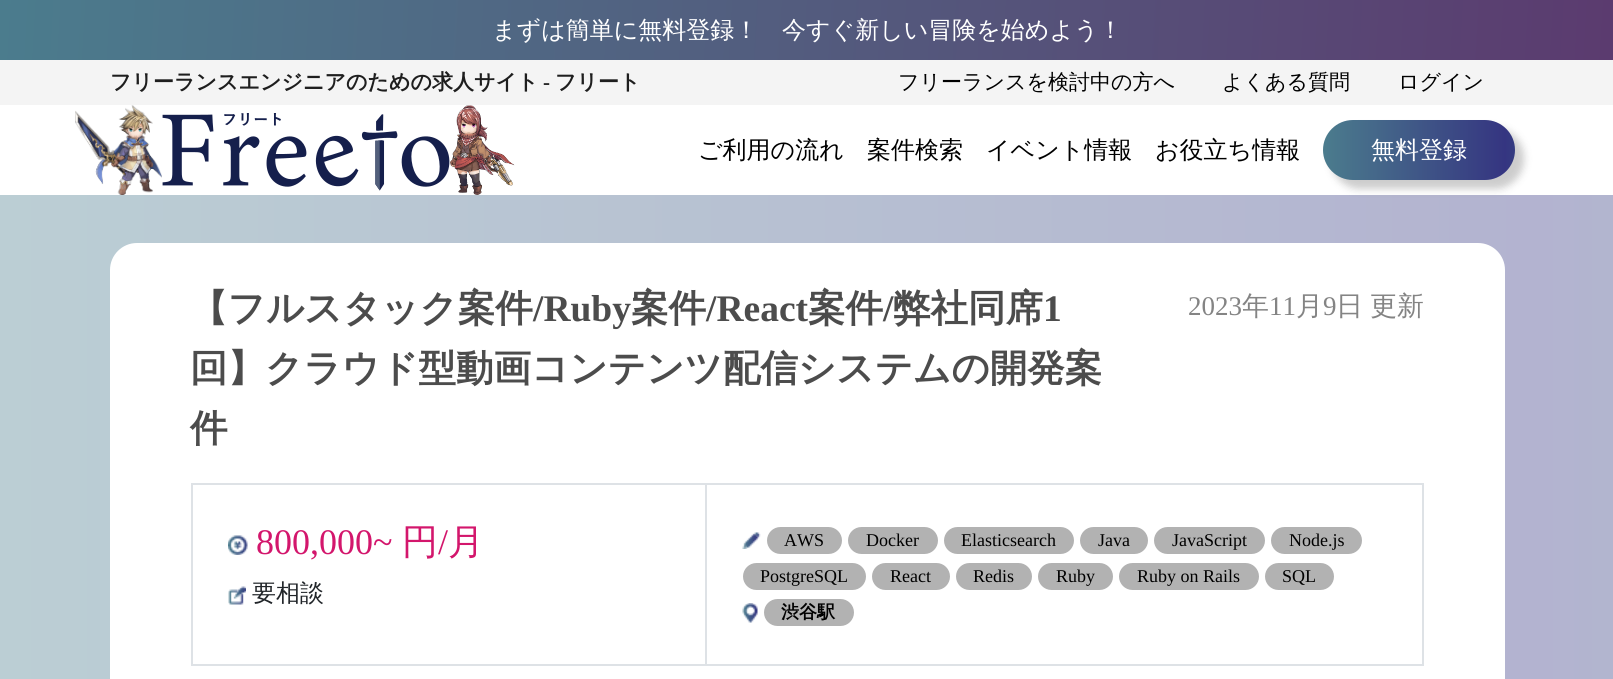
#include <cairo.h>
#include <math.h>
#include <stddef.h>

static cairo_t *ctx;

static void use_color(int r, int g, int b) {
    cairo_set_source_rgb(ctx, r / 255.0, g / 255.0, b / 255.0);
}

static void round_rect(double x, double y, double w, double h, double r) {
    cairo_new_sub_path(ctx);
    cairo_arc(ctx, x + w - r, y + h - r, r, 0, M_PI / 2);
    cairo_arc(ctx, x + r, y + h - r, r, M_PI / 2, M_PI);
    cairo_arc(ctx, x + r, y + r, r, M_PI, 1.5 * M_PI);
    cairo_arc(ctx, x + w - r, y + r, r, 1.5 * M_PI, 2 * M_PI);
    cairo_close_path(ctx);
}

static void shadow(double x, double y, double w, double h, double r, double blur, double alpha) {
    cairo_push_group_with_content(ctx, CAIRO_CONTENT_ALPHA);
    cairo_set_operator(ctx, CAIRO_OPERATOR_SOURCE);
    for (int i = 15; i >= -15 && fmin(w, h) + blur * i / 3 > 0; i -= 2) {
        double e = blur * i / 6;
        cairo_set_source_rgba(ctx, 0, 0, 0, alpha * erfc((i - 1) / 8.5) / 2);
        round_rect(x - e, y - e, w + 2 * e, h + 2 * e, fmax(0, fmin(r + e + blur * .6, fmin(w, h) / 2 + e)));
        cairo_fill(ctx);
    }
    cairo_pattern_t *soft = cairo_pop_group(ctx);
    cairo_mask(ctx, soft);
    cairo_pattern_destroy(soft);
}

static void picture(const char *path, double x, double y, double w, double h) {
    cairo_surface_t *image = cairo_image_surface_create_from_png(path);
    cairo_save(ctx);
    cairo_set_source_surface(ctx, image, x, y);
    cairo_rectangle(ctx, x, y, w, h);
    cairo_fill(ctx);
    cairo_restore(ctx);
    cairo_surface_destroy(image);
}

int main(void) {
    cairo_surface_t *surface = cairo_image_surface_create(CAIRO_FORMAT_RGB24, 1613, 679);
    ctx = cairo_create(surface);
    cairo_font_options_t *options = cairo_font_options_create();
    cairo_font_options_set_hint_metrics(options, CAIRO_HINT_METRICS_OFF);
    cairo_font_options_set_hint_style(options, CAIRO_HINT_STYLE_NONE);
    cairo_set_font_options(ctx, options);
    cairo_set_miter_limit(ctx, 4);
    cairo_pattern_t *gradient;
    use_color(255, 255, 255);
    cairo_paint(ctx);
    gradient = cairo_pattern_create_linear(1.1, -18, 1613, 78);
    cairo_pattern_add_color_stop_rgba(gradient, 0, 0.294, 0.486, 0.553, 1);
    cairo_pattern_add_color_stop_rgba(gradient, 1, 0.357, 0.231, 0.435, 1);
    cairo_set_source(ctx, gradient);
    cairo_pattern_destroy(gradient);
    cairo_rectangle(ctx, 0, 0, 1613, 60);
    cairo_fill(ctx);
    cairo_select_font_face(ctx, "WenQuanYi Zen Hei Medium", CAIRO_FONT_SLANT_NORMAL, CAIRO_FONT_WEIGHT_NORMAL);
    cairo_set_font_size(ctx, 24);
    use_color(255, 255, 255);
    cairo_move_to(ctx, 492, 38);
    cairo_show_text(ctx, "まずは簡単に無料登録！");
    cairo_move_to(ctx, 782, 38);
    cairo_show_text(ctx, "今すぐ新しい冒険を始めよう！");
    use_color(244, 244, 244);
    cairo_rectangle(ctx, 0, 60, 1613, 45);
    cairo_fill(ctx);
    cairo_select_font_face(ctx, "WenQuanYi Zen Hei", CAIRO_FONT_SLANT_NORMAL, CAIRO_FONT_WEIGHT_BOLD);
    cairo_set_font_size(ctx, 21);
    use_color(30, 30, 30);
    cairo_move_to(ctx, 110, 89);
    cairo_show_text(ctx, "フリーランスエンジニアのための求人サイト");
    cairo_select_font_face(ctx, "Liberation Serif", CAIRO_FONT_SLANT_NORMAL, CAIRO_FONT_WEIGHT_BOLD);
    cairo_move_to(ctx, 543, 89);
    cairo_show_text(ctx, "-");
    cairo_select_font_face(ctx, "WenQuanYi Zen Hei", CAIRO_FONT_SLANT_NORMAL, CAIRO_FONT_WEIGHT_BOLD);
    cairo_move_to(ctx, 555, 89);
    cairo_show_text(ctx, "フリート");
    cairo_select_font_face(ctx, "WenQuanYi Zen Hei Medium", CAIRO_FONT_SLANT_NORMAL, CAIRO_FONT_WEIGHT_NORMAL);
    use_color(0, 0, 0);
    cairo_move_to(ctx, 898, 89);
    cairo_show_text(ctx, "フリーランスを検討中の方へ");
    cairo_move_to(ctx, 1222, 89);
    cairo_show_text(ctx, "よくある質問");
    cairo_move_to(ctx, 1398, 89);
    cairo_show_text(ctx, "ログイン");
    picture("img1.png", 75, 105, 87, 90);
    picture("img2.png", 162, 113, 288, 78);
    picture("img3.png", 450, 105, 65, 90);
    cairo_set_font_size(ctx, 24);
    cairo_move_to(ctx, 698, 158);
    cairo_show_text(ctx, "ご利用の流れ");
    cairo_move_to(ctx, 867, 158);
    cairo_show_text(ctx, "案件検索");
    cairo_move_to(ctx, 986, 158);
    cairo_show_text(ctx, "イベント情報");
    cairo_move_to(ctx, 1155, 158);
    cairo_show_text(ctx, "お役立ち情報");
    gradient = cairo_pattern_create_linear(0, 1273, 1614, 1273);
    cairo_pattern_add_color_stop_rgba(gradient, 0, 0.733, 0.808, 0.831, 1);
    cairo_pattern_add_color_stop_rgba(gradient, 0.95, 0.702, 0.702, 0.816, 1);
    cairo_pattern_add_color_stop_rgba(gradient, 1, 0.698, 0.71, 0.812, 1);
    cairo_set_source(ctx, gradient);
    cairo_pattern_destroy(gradient);
    cairo_rectangle(ctx, 0, 195, 1613, 484);
    cairo_fill(ctx);
    use_color(0, 0, 0);
    shadow(1331, 128, 193, 61, 30.5, 4, 0.2);
    gradient = cairo_pattern_create_linear(1323, 150, 1515, 150);
    cairo_pattern_add_color_stop_rgba(gradient, 0, 0.294, 0.486, 0.553, 1);
    cairo_pattern_add_color_stop_rgba(gradient, 0.95, 0.208, 0.208, 0.506, 1);
    cairo_pattern_add_color_stop_rgba(gradient, 1, 0.204, 0.235, 0.502, 1);
    cairo_set_source(ctx, gradient);
    cairo_pattern_destroy(gradient);
    round_rect(1323, 120, 192, 60, 30);
    cairo_fill(ctx);
    use_color(255, 255, 255);
    cairo_move_to(ctx, 1371, 158);
    cairo_show_text(ctx, "無料登録");
    round_rect(110, 243, 1395, 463, 27);
    cairo_fill(ctx);
    cairo_select_font_face(ctx, "WenQuanYi Zen Hei", CAIRO_FONT_SLANT_NORMAL, CAIRO_FONT_WEIGHT_BOLD);
    cairo_set_font_size(ctx, 37.5);
    use_color(76, 76, 76);
    cairo_move_to(ctx, 190, 321);
    cairo_show_text(ctx, "【フルスタック案件");
    cairo_select_font_face(ctx, "Liberation Serif", CAIRO_FONT_SLANT_NORMAL, CAIRO_FONT_WEIGHT_BOLD);
    cairo_move_to(ctx, 533, 321);
    cairo_show_text(ctx, "/Ruby");
    cairo_select_font_face(ctx, "WenQuanYi Zen Hei", CAIRO_FONT_SLANT_NORMAL, CAIRO_FONT_WEIGHT_BOLD);
    cairo_move_to(ctx, 631, 321);
    cairo_show_text(ctx, "案件");
    cairo_select_font_face(ctx, "Liberation Serif", CAIRO_FONT_SLANT_NORMAL, CAIRO_FONT_WEIGHT_BOLD);
    cairo_move_to(ctx, 706, 321);
    cairo_show_text(ctx, "/React");
    cairo_select_font_face(ctx, "WenQuanYi Zen Hei", CAIRO_FONT_SLANT_NORMAL, CAIRO_FONT_WEIGHT_BOLD);
    cairo_move_to(ctx, 808, 321);
    cairo_show_text(ctx, "案件");
    cairo_select_font_face(ctx, "Liberation Serif", CAIRO_FONT_SLANT_NORMAL, CAIRO_FONT_WEIGHT_BOLD);
    cairo_move_to(ctx, 883, 321);
    cairo_show_text(ctx, "/");
    cairo_select_font_face(ctx, "WenQuanYi Zen Hei", CAIRO_FONT_SLANT_NORMAL, CAIRO_FONT_WEIGHT_BOLD);
    cairo_move_to(ctx, 893, 321);
    cairo_show_text(ctx, "弊社同席");
    cairo_select_font_face(ctx, "Liberation Serif", CAIRO_FONT_SLANT_NORMAL, CAIRO_FONT_WEIGHT_BOLD);
    cairo_move_to(ctx, 1043, 321);
    cairo_show_text(ctx, "1");
    cairo_select_font_face(ctx, "WenQuanYi Zen Hei", CAIRO_FONT_SLANT_NORMAL, CAIRO_FONT_WEIGHT_BOLD);
    cairo_move_to(ctx, 190, 381);
    cairo_show_text(ctx, "回】クラウド型動画コンテンツ配信システムの開発案");
    cairo_move_to(ctx, 190, 441);
    cairo_show_text(ctx, "件");
    cairo_select_font_face(ctx, "Liberation Serif", CAIRO_FONT_SLANT_NORMAL, CAIRO_FONT_WEIGHT_NORMAL);
    cairo_set_font_size(ctx, 27);
    use_color(132, 132, 132);
    cairo_move_to(ctx, 1188, 315);
    cairo_show_text(ctx, "2023");
    cairo_select_font_face(ctx, "WenQuanYi Zen Hei Medium", CAIRO_FONT_SLANT_NORMAL, CAIRO_FONT_WEIGHT_NORMAL);
    cairo_move_to(ctx, 1242, 315);
    cairo_show_text(ctx, "年");
    cairo_select_font_face(ctx, "Liberation Serif", CAIRO_FONT_SLANT_NORMAL, CAIRO_FONT_WEIGHT_NORMAL);
    cairo_move_to(ctx, 1269, 315);
    cairo_show_text(ctx, "11");
    cairo_select_font_face(ctx, "WenQuanYi Zen Hei Medium", CAIRO_FONT_SLANT_NORMAL, CAIRO_FONT_WEIGHT_NORMAL);
    cairo_move_to(ctx, 1296, 315);
    cairo_show_text(ctx, "月");
    cairo_select_font_face(ctx, "Liberation Serif", CAIRO_FONT_SLANT_NORMAL, CAIRO_FONT_WEIGHT_NORMAL);
    cairo_move_to(ctx, 1323, 315);
    cairo_show_text(ctx, "9");
    cairo_select_font_face(ctx, "WenQuanYi Zen Hei Medium", CAIRO_FONT_SLANT_NORMAL, CAIRO_FONT_WEIGHT_NORMAL);
    cairo_move_to(ctx, 1336, 315);
    cairo_show_text(ctx, "日");
    cairo_move_to(ctx, 1370, 315);
    cairo_show_text(ctx, "更新");
    cairo_rectangle(ctx, 192, 484, 1231, 181);
    use_color(222, 226, 230);
    cairo_stroke(ctx);
    picture("img4.png", 228, 535, 20, 20);
    cairo_select_font_face(ctx, "Liberation Serif", CAIRO_FONT_SLANT_NORMAL, CAIRO_FONT_WEIGHT_NORMAL);
    cairo_set_font_size(ctx, 36);
    use_color(211, 22, 108);
    cairo_move_to(ctx, 256, 554);
    cairo_show_text(ctx, "800,000~");
    cairo_select_font_face(ctx, "WenQuanYi Zen Hei Medium", CAIRO_FONT_SLANT_NORMAL, CAIRO_FONT_WEIGHT_NORMAL);
    cairo_move_to(ctx, 402, 554);
    cairo_show_text(ctx, "円");
    cairo_select_font_face(ctx, "Liberation Serif", CAIRO_FONT_SLANT_NORMAL, CAIRO_FONT_WEIGHT_NORMAL);
    cairo_move_to(ctx, 438, 554);
    cairo_show_text(ctx, "/");
    cairo_select_font_face(ctx, "WenQuanYi Zen Hei Medium", CAIRO_FONT_SLANT_NORMAL, CAIRO_FONT_WEIGHT_NORMAL);
    cairo_move_to(ctx, 448, 554);
    cairo_show_text(ctx, "月");
    picture("img5.png", 228, 586, 18, 19);
    cairo_set_font_size(ctx, 24);
    use_color(33, 37, 41);
    cairo_move_to(ctx, 252, 601);
    cairo_show_text(ctx, "要相談");
    use_color(222, 226, 230);
    cairo_rectangle(ctx, 705, 485, 2, 180);
    cairo_fill(ctx);
    picture("img6.png", 742, 532, 19, 17);
    use_color(178, 178, 178);
    round_rect(767, 527, 75, 27, 13.5);
    cairo_fill(ctx);
    cairo_select_font_face(ctx, "Liberation Serif", CAIRO_FONT_SLANT_NORMAL, CAIRO_FONT_WEIGHT_NORMAL);
    cairo_set_font_size(ctx, 18);
    use_color(0, 0, 0);
    cairo_move_to(ctx, 784, 546);
    cairo_show_text(ctx, "AWS");
    use_color(178, 178, 178);
    round_rect(848, 527, 90, 27, 13.5);
    cairo_fill(ctx);
    use_color(0, 0, 0);
    cairo_move_to(ctx, 866, 546);
    cairo_show_text(ctx, "Docker");
    use_color(178, 178, 178);
    round_rect(944, 527, 130, 27, 13.5);
    cairo_fill(ctx);
    use_color(0, 0, 0);
    cairo_move_to(ctx, 961, 546);
    cairo_show_text(ctx, "Elasticsearch");
    use_color(178, 178, 178);
    round_rect(1080, 527, 68, 27, 13.5);
    cairo_fill(ctx);
    use_color(0, 0, 0);
    cairo_move_to(ctx, 1098, 546);
    cairo_show_text(ctx, "Java");
    use_color(178, 178, 178);
    round_rect(1154, 527, 111, 27, 13.5);
    cairo_fill(ctx);
    use_color(0, 0, 0);
    cairo_move_to(ctx, 1172, 546);
    cairo_show_text(ctx, "JavaScript");
    use_color(178, 178, 178);
    round_rect(1271, 527, 91, 27, 13.5);
    cairo_fill(ctx);
    use_color(0, 0, 0);
    cairo_move_to(ctx, 1289, 546);
    cairo_show_text(ctx, "Node.js");
    use_color(178, 178, 178);
    round_rect(743, 563, 123, 27, 13.5);
    cairo_fill(ctx);
    use_color(0, 0, 0);
    cairo_move_to(ctx, 760, 582);
    cairo_show_text(ctx, "PostgreSQL");
    use_color(178, 178, 178);
    round_rect(872, 563, 78, 27, 13.5);
    cairo_fill(ctx);
    use_color(0, 0, 0);
    cairo_move_to(ctx, 890, 582);
    cairo_show_text(ctx, "React");
    use_color(178, 178, 178);
    round_rect(956, 563, 76, 27, 13.5);
    cairo_fill(ctx);
    use_color(0, 0, 0);
    cairo_move_to(ctx, 973, 582);
    cairo_show_text(ctx, "Redis");
    use_color(178, 178, 178);
    round_rect(1038, 563, 75, 27, 13.5);
    cairo_fill(ctx);
    use_color(0, 0, 0);
    cairo_move_to(ctx, 1056, 582);
    cairo_show_text(ctx, "Ruby");
    use_color(178, 178, 178);
    round_rect(1119, 563, 140, 27, 13.5);
    cairo_fill(ctx);
    use_color(0, 0, 0);
    cairo_move_to(ctx, 1137, 582);
    cairo_show_text(ctx, "Ruby on Rails");
    use_color(178, 178, 178);
    round_rect(1265, 563, 69, 27, 13.5);
    cairo_fill(ctx);
    use_color(0, 0, 0);
    cairo_move_to(ctx, 1282, 582);
    cairo_show_text(ctx, "SQL");
    picture("img7.png", 742, 603, 16, 20);
    use_color(178, 178, 178);
    round_rect(764, 599, 90, 27, 13.5);
    cairo_fill(ctx);
    cairo_select_font_face(ctx, "WenQuanYi Zen Hei", CAIRO_FONT_SLANT_NORMAL, CAIRO_FONT_WEIGHT_BOLD);
    use_color(0, 0, 0);
    cairo_move_to(ctx, 781, 618);
    cairo_show_text(ctx, "渋谷駅");
    cairo_surface_write_to_png(surface, "result.png");
    cairo_font_options_destroy(options);
    cairo_destroy(ctx);
    cairo_surface_destroy(surface);
    return 0;
}
